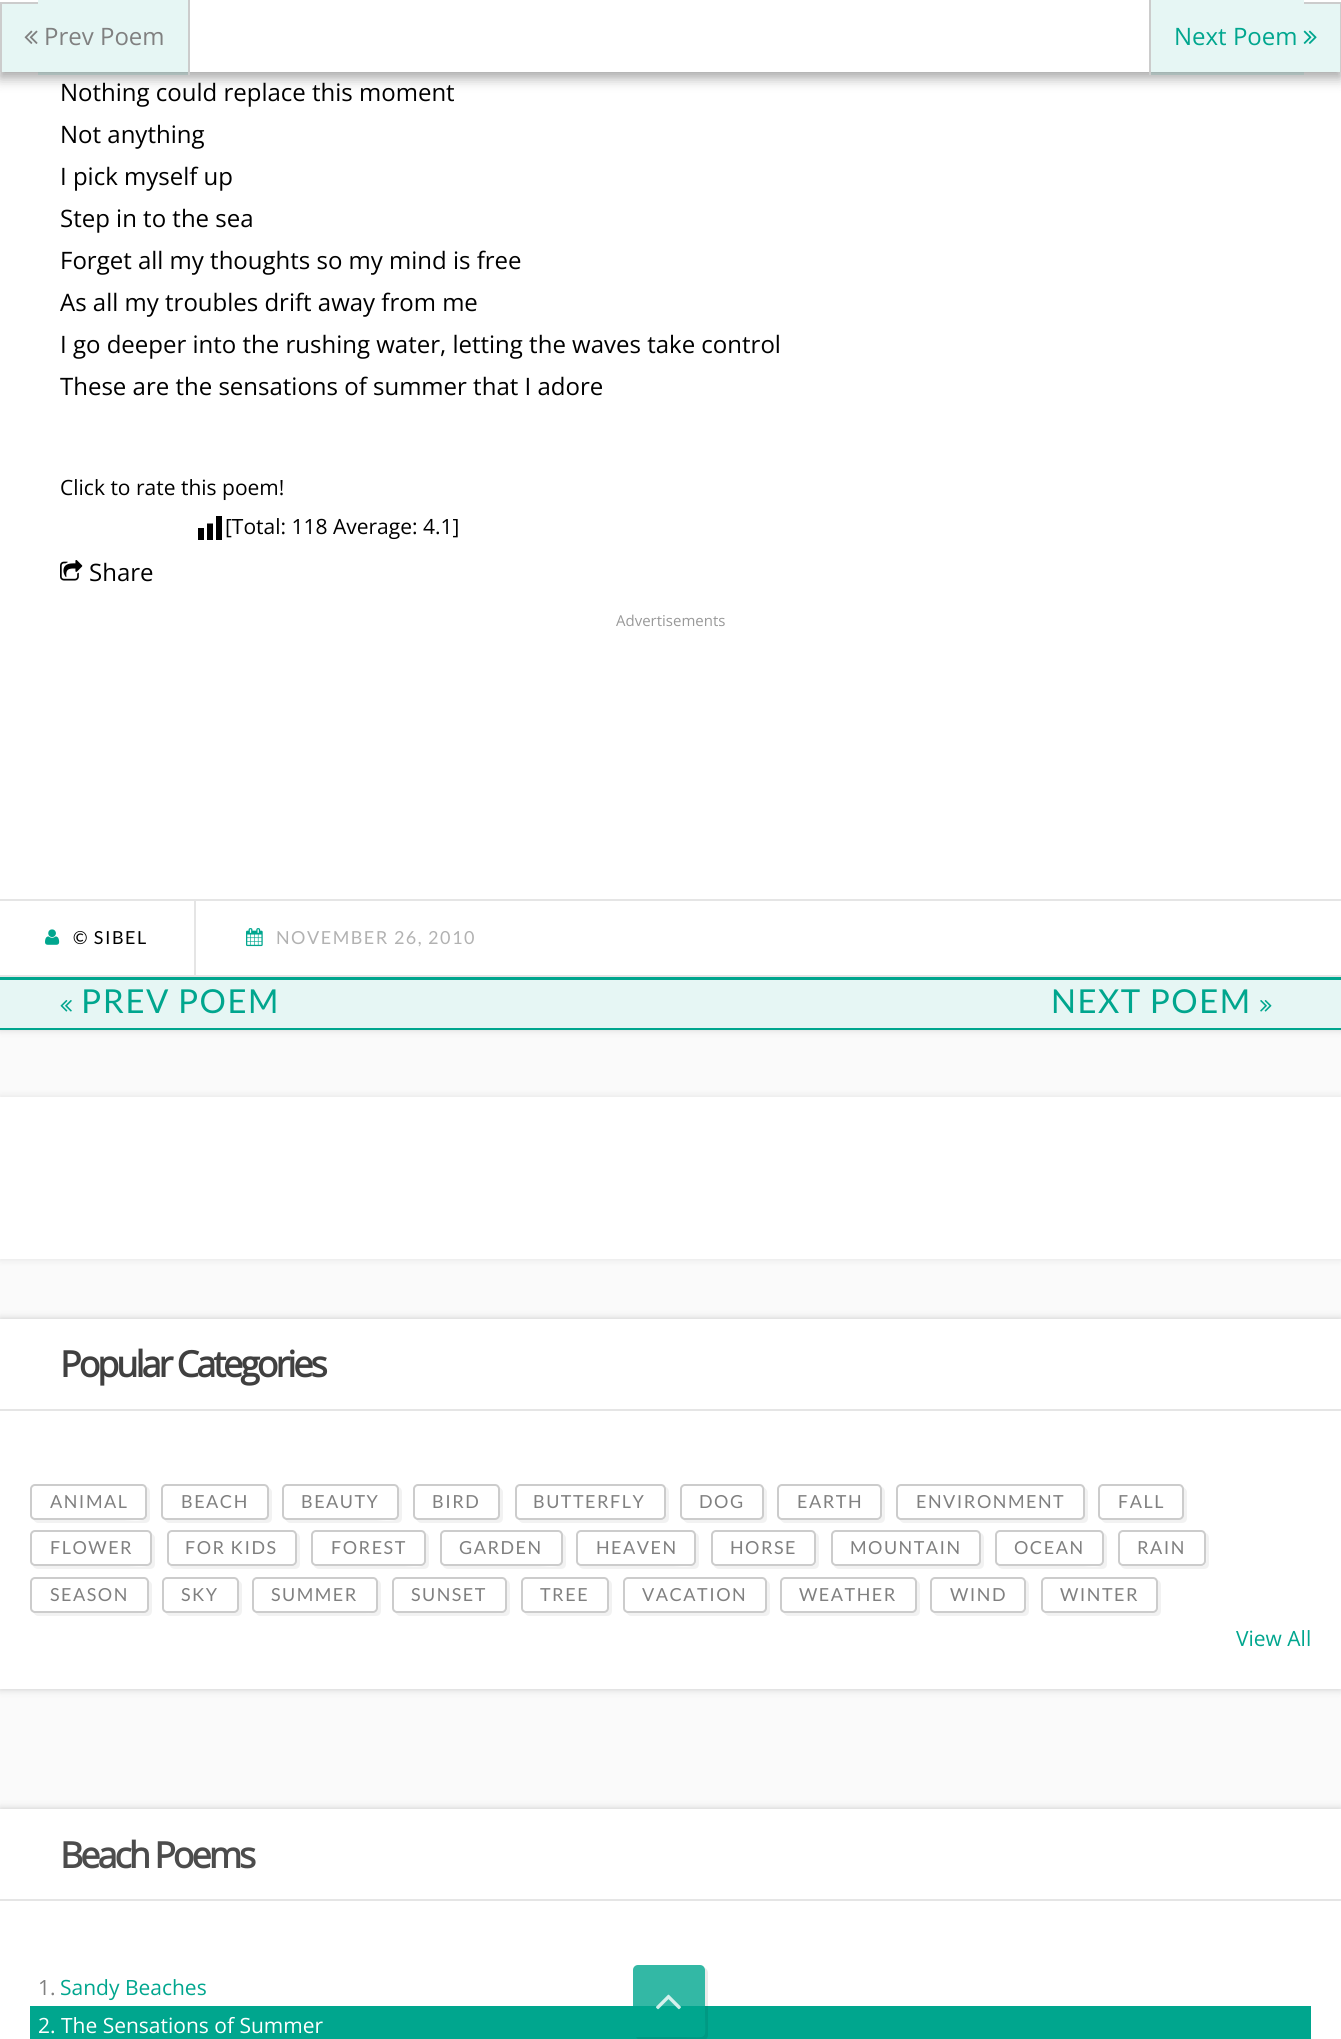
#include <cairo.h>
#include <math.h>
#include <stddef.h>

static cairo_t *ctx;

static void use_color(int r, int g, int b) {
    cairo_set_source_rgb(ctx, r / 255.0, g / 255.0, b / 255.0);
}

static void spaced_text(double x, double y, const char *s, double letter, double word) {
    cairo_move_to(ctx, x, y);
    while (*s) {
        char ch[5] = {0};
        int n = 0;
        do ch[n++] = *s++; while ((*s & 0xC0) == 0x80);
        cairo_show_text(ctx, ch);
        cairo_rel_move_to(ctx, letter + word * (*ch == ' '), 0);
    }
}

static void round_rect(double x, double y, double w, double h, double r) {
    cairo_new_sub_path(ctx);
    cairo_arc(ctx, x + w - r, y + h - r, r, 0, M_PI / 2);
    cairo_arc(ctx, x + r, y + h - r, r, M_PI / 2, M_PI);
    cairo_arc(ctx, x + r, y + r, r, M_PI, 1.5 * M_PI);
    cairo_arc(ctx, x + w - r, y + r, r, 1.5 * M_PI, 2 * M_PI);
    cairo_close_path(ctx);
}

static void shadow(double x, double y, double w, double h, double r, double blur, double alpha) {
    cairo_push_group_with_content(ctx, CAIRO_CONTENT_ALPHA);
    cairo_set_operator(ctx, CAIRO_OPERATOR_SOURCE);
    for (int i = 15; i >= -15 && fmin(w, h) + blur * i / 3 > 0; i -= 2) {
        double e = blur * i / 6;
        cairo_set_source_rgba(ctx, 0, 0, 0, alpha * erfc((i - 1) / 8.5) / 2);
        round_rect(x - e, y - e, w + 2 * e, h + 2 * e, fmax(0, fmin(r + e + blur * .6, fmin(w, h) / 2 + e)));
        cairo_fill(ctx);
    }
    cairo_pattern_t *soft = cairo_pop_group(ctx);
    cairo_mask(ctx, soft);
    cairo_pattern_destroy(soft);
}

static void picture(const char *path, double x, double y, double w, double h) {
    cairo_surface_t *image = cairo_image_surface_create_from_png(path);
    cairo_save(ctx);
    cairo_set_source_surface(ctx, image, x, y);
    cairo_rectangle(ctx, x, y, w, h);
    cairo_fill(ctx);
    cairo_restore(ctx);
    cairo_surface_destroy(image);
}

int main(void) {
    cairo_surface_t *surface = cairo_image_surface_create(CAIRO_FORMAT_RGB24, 1341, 2039);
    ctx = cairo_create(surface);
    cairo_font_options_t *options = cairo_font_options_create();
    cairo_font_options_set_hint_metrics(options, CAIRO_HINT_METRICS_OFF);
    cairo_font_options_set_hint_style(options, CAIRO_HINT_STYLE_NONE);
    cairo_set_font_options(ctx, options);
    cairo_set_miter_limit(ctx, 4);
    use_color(250, 250, 250);
    cairo_paint(ctx);
    use_color(0, 0, 0);
    shadow(0, -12, 1341, 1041, 0, 4, 0.2);
    use_color(255, 255, 255);
    cairo_rectangle(ctx, 0, 72, 1341, 903);
    cairo_fill(ctx);
    use_color(0, 0, 0);
    shadow(0, 5, 1341, 72, 0, 7.5, 0.19);
    shadow(0, 6, 1341, 72, 0, 6, 0.2);
    use_color(255, 255, 255);
    cairo_rectangle(ctx, 0, 0, 1341, 72);
    cairo_fill(ctx);
    use_color(230, 246, 244);
    cairo_rectangle(ctx, 2, 4, 36, 68);
    cairo_fill(ctx);
    use_color(204, 204, 204);
    cairo_rectangle(ctx, 0, 2, 38, 2);
    cairo_fill(ctx);
    cairo_rectangle(ctx, 0, 2, 2, 70);
    cairo_fill(ctx);
    cairo_set_source_rgba(ctx, 0, 0.651, 0.557, 0.1);
    cairo_rectangle(ctx, 38, 0, 150, 75);
    cairo_fill(ctx);
    use_color(204, 204, 204);
    cairo_rectangle(ctx, 188, 0, 2, 75);
    cairo_fill(ctx);
    picture("img1.png", 24, 30, 14, 14);
    cairo_select_font_face(ctx, "Open Sans", CAIRO_FONT_SLANT_NORMAL, CAIRO_FONT_WEIGHT_NORMAL);
    cairo_set_font_size(ctx, 24);
    use_color(128, 128, 128);
    cairo_move_to(ctx, 44, 45);
    cairo_show_text(ctx, "Prev Poem");
    cairo_set_source_rgba(ctx, 0, 0.651, 0.557, 0.1);
    cairo_rectangle(ctx, 1151, 0, 153, 75);
    cairo_fill(ctx);
    use_color(204, 204, 204);
    cairo_rectangle(ctx, 1149, 0, 2, 75);
    cairo_fill(ctx);
    use_color(230, 246, 244);
    cairo_rectangle(ctx, 1304, 4, 36, 68);
    cairo_fill(ctx);
    use_color(204, 204, 204);
    cairo_rectangle(ctx, 1304, 2, 37, 2);
    cairo_fill(ctx);
    cairo_rectangle(ctx, 1340, 2, 1, 70);
    cairo_fill(ctx);
    use_color(0, 166, 142);
    cairo_move_to(ctx, 1174, 45);
    cairo_show_text(ctx, "Next Poem");
    picture("img2.png", 1303, 30, 14, 14);
    use_color(0, 0, 0);
    shadow(0, 1809, 1341, 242, 0, 4, 0.2);
    use_color(255, 255, 255);
    cairo_rectangle(ctx, 0, 1809, 1341, 230);
    cairo_fill(ctx);
    use_color(229, 229, 229);
    cairo_rectangle(ctx, 0, 1899, 1341, 2);
    cairo_fill(ctx);
    cairo_select_font_face(ctx, "Open Sans", CAIRO_FONT_SLANT_NORMAL, CAIRO_FONT_WEIGHT_BOLD);
    cairo_set_font_size(ctx, 36);
    use_color(76, 76, 76);
    spaced_text(60, 1868, "Beach Poems", -3, 0);
    cairo_select_font_face(ctx, "Open Sans", CAIRO_FONT_SLANT_NORMAL, CAIRO_FONT_WEIGHT_NORMAL);
    cairo_set_font_size(ctx, 21);
    use_color(128, 128, 128);
    cairo_move_to(ctx, 38, 1995);
    cairo_show_text(ctx, "1.");
    use_color(0, 166, 142);
    cairo_move_to(ctx, 60, 1995);
    cairo_show_text(ctx, "Sandy Beaches");
    cairo_rectangle(ctx, 30, 2006, 1281, 33);
    cairo_fill(ctx);
    use_color(255, 255, 255);
    cairo_move_to(ctx, 38, 2033);
    cairo_show_text(ctx, "2. The Sensations of Summer");
    cairo_set_font_size(ctx, 24);
    use_color(0, 0, 0);
    cairo_move_to(ctx, 60, 101);
    cairo_show_text(ctx, "Nothing could replace this moment");
    cairo_move_to(ctx, 60, 143);
    cairo_show_text(ctx, "Not anything");
    cairo_move_to(ctx, 60, 185);
    cairo_show_text(ctx, "I pick myself up");
    cairo_move_to(ctx, 60, 227);
    cairo_show_text(ctx, "Step in to the sea");
    cairo_move_to(ctx, 60, 269);
    cairo_show_text(ctx, "Forget all my thoughts so my mind is free");
    cairo_move_to(ctx, 60, 311);
    cairo_show_text(ctx, "As all my troubles drift away from me");
    cairo_move_to(ctx, 60, 353);
    cairo_show_text(ctx, "I go deeper into the rushing water, letting the waves take control");
    cairo_move_to(ctx, 60, 395);
    cairo_show_text(ctx, "These are the sensations of summer that I adore");
    cairo_set_font_size(ctx, 21);
    cairo_move_to(ctx, 60, 495);
    cairo_show_text(ctx, "Click to rate this poem!");
    picture("img3.png", 198, 516, 24, 24);
    cairo_move_to(ctx, 225, 534);
    cairo_show_text(ctx, "[Total: 118 Average: 4.1]");
    picture("img4.png", 60, 560, 23, 21);
    cairo_set_font_size(ctx, 24);
    cairo_move_to(ctx, 89, 581);
    cairo_show_text(ctx, "Share");
    cairo_set_font_size(ctx, 15);
    use_color(153, 153, 153);
    cairo_move_to(ctx, 616, 626);
    cairo_show_text(ctx, "Advertisements");
    use_color(229, 229, 229);
    cairo_rectangle(ctx, 0, 899, 1341, 2);
    cairo_fill(ctx);
    cairo_rectangle(ctx, 0, 975, 1341, 2);
    cairo_fill(ctx);
    cairo_rectangle(ctx, 194, 900, 2, 75);
    cairo_fill(ctx);
    picture("img5.png", 45, 929, 15, 16);
    cairo_select_font_face(ctx, "Lato", CAIRO_FONT_SLANT_NORMAL, CAIRO_FONT_WEIGHT_NORMAL);
    cairo_set_font_size(ctx, 18);
    use_color(0, 0, 0);
    spaced_text(73, 944, "© SIBEL", 1.5, 0);
    picture("img6.png", 246, 928, 17, 19);
    use_color(178, 178, 178);
    spaced_text(276, 944, "NOVEMBER 26, 2010", 1.5, 0);
    use_color(230, 246, 244);
    cairo_rectangle(ctx, 0, 980, 1341, 48);
    cairo_fill(ctx);
    use_color(0, 166, 142);
    cairo_rectangle(ctx, 0, 977, 1341, 3);
    cairo_fill(ctx);
    cairo_rectangle(ctx, 0, 1028, 1341, 2);
    cairo_fill(ctx);
    picture("img7.png", 60, 1000, 12, 12);
    cairo_set_font_size(ctx, 33);
    spaced_text(81, 1013, "PREV POEM", 1.5, 0);
    spaced_text(1051, 1013, "NEXT POEM", 1.5, 0);
    picture("img8.png", 1260, 1000, 12, 12);
    use_color(0, 0, 0);
    shadow(0, 1097, 1341, 162, 0, 4, 0.1);
    use_color(255, 255, 255);
    cairo_rectangle(ctx, 0, 1097, 1341, 162);
    cairo_fill(ctx);
    use_color(0, 0, 0);
    shadow(0, 1319, 1341, 370, 0, 4, 0.2);
    use_color(255, 255, 255);
    cairo_rectangle(ctx, 0, 1319, 1341, 370);
    cairo_fill(ctx);
    use_color(229, 229, 229);
    cairo_rectangle(ctx, 0, 1409, 1341, 2);
    cairo_fill(ctx);
    cairo_select_font_face(ctx, "Open Sans", CAIRO_FONT_SLANT_NORMAL, CAIRO_FONT_WEIGHT_BOLD);
    cairo_set_font_size(ctx, 36);
    use_color(64, 64, 64);
    spaced_text(60, 1377, "Popular Categories", -3, 0);
    use_color(242, 242, 242);
    cairo_new_path(ctx);
    cairo_move_to(ctx, 33, 1519);
    cairo_curve_to(ctx, 34, 1521, 36, 1523, 38, 1523);
    cairo_line_to(ctx, 145, 1523);
    cairo_curve_to(ctx, 148, 1523, 150, 1521, 150, 1518);
    cairo_line_to(ctx, 150, 1492);
    cairo_curve_to(ctx, 150, 1490, 149, 1488, 147, 1487);
    cairo_line_to(ctx, 147, 1516);
    cairo_curve_to(ctx, 146, 1523, 131, 1520, 124, 1520);
    cairo_close_path(ctx);
    cairo_fill(ctx);
    round_rect(31, 1485, 115, 34, 4);
    use_color(204, 204, 204);
    cairo_stroke(ctx);
    cairo_select_font_face(ctx, "Lato", CAIRO_FONT_SLANT_NORMAL, CAIRO_FONT_WEIGHT_NORMAL);
    cairo_set_font_size(ctx, 18);
    use_color(128, 128, 128);
    spaced_text(50, 1508, "ANIMAL", 1.5, 0);
    use_color(242, 242, 242);
    cairo_new_path(ctx);
    cairo_move_to(ctx, 164, 1519);
    cairo_curve_to(ctx, 165, 1521, 167, 1523, 169, 1523);
    cairo_line_to(ctx, 267, 1523);
    cairo_curve_to(ctx, 270, 1523, 272, 1521, 272, 1518);
    cairo_line_to(ctx, 272, 1492);
    cairo_curve_to(ctx, 272, 1490, 270, 1488, 268, 1487);
    cairo_line_to(ctx, 268, 1506);
    cairo_curve_to(ctx, 268, 1523, 268, 1520, 248, 1520);
    cairo_close_path(ctx);
    cairo_fill(ctx);
    round_rect(162, 1485, 106, 34, 4);
    use_color(204, 204, 204);
    cairo_stroke(ctx);
    use_color(128, 128, 128);
    spaced_text(181, 1508, "BEACH", 1.5, 0);
    use_color(242, 242, 242);
    cairo_new_path(ctx);
    cairo_move_to(ctx, 285, 1519);
    cairo_curve_to(ctx, 286, 1521, 288, 1523, 290, 1523);
    cairo_line_to(ctx, 397, 1523);
    cairo_curve_to(ctx, 400, 1523, 402, 1521, 402, 1518);
    cairo_line_to(ctx, 402, 1492);
    cairo_curve_to(ctx, 402, 1490, 401, 1488, 399, 1487);
    cairo_line_to(ctx, 399, 1516);
    cairo_curve_to(ctx, 398, 1523, 383, 1520, 376, 1520);
    cairo_close_path(ctx);
    cairo_fill(ctx);
    round_rect(283, 1485, 115, 34, 4);
    use_color(204, 204, 204);
    cairo_stroke(ctx);
    use_color(128, 128, 128);
    spaced_text(301, 1508, "BEAUTY", 1.5, 0);
    use_color(242, 242, 242);
    cairo_new_path(ctx);
    cairo_move_to(ctx, 416, 1519);
    cairo_curve_to(ctx, 417, 1521, 419, 1523, 421, 1523);
    cairo_line_to(ctx, 498, 1523);
    cairo_curve_to(ctx, 501, 1523, 503, 1521, 503, 1518);
    cairo_line_to(ctx, 503, 1492);
    cairo_curve_to(ctx, 503, 1490, 501, 1488, 499, 1487);
    cairo_line_to(ctx, 500, 1506);
    cairo_curve_to(ctx, 500, 1510, 501, 1519, 495, 1520);
    cairo_close_path(ctx);
    cairo_fill(ctx);
    round_rect(414, 1485, 85, 34, 4);
    use_color(204, 204, 204);
    cairo_stroke(ctx);
    use_color(128, 128, 128);
    spaced_text(432, 1508, "BIRD", 1.5, 0);
    use_color(242, 242, 242);
    cairo_new_path(ctx);
    cairo_move_to(ctx, 518, 1519);
    cairo_curve_to(ctx, 519, 1521, 521, 1523, 523, 1523);
    cairo_line_to(ctx, 664, 1523);
    cairo_curve_to(ctx, 667, 1523, 669, 1521, 669, 1518);
    cairo_line_to(ctx, 669, 1492);
    cairo_curve_to(ctx, 669, 1490, 668, 1488, 666, 1487);
    cairo_line_to(ctx, 666, 1506);
    cairo_curve_to(ctx, 666, 1510, 668, 1519, 662, 1520);
    cairo_close_path(ctx);
    cairo_fill(ctx);
    round_rect(516, 1485, 149, 34, 4);
    use_color(204, 204, 204);
    cairo_stroke(ctx);
    use_color(128, 128, 128);
    spaced_text(533, 1508, "BUTTERFLY", 1.5, 0);
    use_color(242, 242, 242);
    cairo_new_path(ctx);
    cairo_move_to(ctx, 683, 1519);
    cairo_curve_to(ctx, 684, 1521, 686, 1523, 688, 1523);
    cairo_line_to(ctx, 762, 1523);
    cairo_curve_to(ctx, 765, 1523, 767, 1521, 767, 1518);
    cairo_line_to(ctx, 767, 1492);
    cairo_curve_to(ctx, 767, 1490, 765, 1488, 763, 1487);
    cairo_line_to(ctx, 764, 1506);
    cairo_curve_to(ctx, 764, 1510, 765, 1519, 759, 1520);
    cairo_close_path(ctx);
    cairo_fill(ctx);
    round_rect(681, 1485, 82, 34, 4);
    use_color(204, 204, 204);
    cairo_stroke(ctx);
    use_color(128, 128, 128);
    spaced_text(699, 1508, "DOG", 1.5, 0);
    use_color(242, 242, 242);
    cairo_new_path(ctx);
    cairo_move_to(ctx, 780, 1519);
    cairo_curve_to(ctx, 781, 1521, 783, 1523, 785, 1523);
    cairo_line_to(ctx, 880, 1523);
    cairo_curve_to(ctx, 883, 1523, 885, 1521, 885, 1518);
    cairo_line_to(ctx, 885, 1492);
    cairo_curve_to(ctx, 885, 1490, 884, 1488, 882, 1487);
    cairo_line_to(ctx, 882, 1506);
    cairo_curve_to(ctx, 882, 1510, 884, 1519, 878, 1520);
    cairo_close_path(ctx);
    cairo_fill(ctx);
    round_rect(778, 1485, 103, 34, 4);
    use_color(204, 204, 204);
    cairo_stroke(ctx);
    use_color(128, 128, 128);
    spaced_text(797, 1508, "EARTH", 1.5, 0);
    use_color(242, 242, 242);
    cairo_new_path(ctx);
    cairo_move_to(ctx, 899, 1519);
    cairo_curve_to(ctx, 900, 1521, 902, 1523, 904, 1523);
    cairo_line_to(ctx, 1083, 1523);
    cairo_curve_to(ctx, 1086, 1523, 1088, 1521, 1088, 1518);
    cairo_line_to(ctx, 1088, 1492);
    cairo_curve_to(ctx, 1088, 1490, 1086, 1488, 1084, 1487);
    cairo_line_to(ctx, 1084, 1506);
    cairo_curve_to(ctx, 1084, 1510, 1086, 1519, 1080, 1520);
    cairo_close_path(ctx);
    cairo_fill(ctx);
    round_rect(897, 1485, 187, 34, 4);
    use_color(204, 204, 204);
    cairo_stroke(ctx);
    use_color(128, 128, 128);
    spaced_text(916, 1508, "ENVIRONMENT", 1.5, 0);
    use_color(242, 242, 242);
    cairo_new_path(ctx);
    cairo_move_to(ctx, 1101, 1519);
    cairo_curve_to(ctx, 1102, 1521, 1104, 1523, 1106, 1523);
    cairo_line_to(ctx, 1182, 1523);
    cairo_curve_to(ctx, 1185, 1523, 1187, 1521, 1187, 1518);
    cairo_line_to(ctx, 1187, 1492);
    cairo_curve_to(ctx, 1187, 1490, 1185, 1488, 1183, 1487);
    cairo_line_to(ctx, 1184, 1506);
    cairo_curve_to(ctx, 1184, 1510, 1185, 1519, 1179, 1520);
    cairo_close_path(ctx);
    cairo_fill(ctx);
    round_rect(1099, 1485, 84, 34, 4);
    use_color(204, 204, 204);
    cairo_stroke(ctx);
    use_color(128, 128, 128);
    spaced_text(1118, 1508, "FALL", 1.5, 0);
    use_color(242, 242, 242);
    cairo_new_path(ctx);
    cairo_move_to(ctx, 33, 1566);
    cairo_curve_to(ctx, 34, 1568, 36, 1569, 38, 1569);
    cairo_line_to(ctx, 150, 1569);
    cairo_curve_to(ctx, 153, 1569, 155, 1567, 155, 1564);
    cairo_line_to(ctx, 155, 1538);
    cairo_curve_to(ctx, 155, 1536, 153, 1534, 151, 1533);
    cairo_line_to(ctx, 151, 1562);
    cairo_curve_to(ctx, 150, 1569, 134, 1566, 128, 1566);
    cairo_close_path(ctx);
    cairo_fill(ctx);
    round_rect(31, 1531, 120, 34, 4);
    use_color(204, 204, 204);
    cairo_stroke(ctx);
    use_color(128, 128, 128);
    spaced_text(50, 1554, "FLOWER", 1.5, 0);
    use_color(242, 242, 242);
    cairo_new_path(ctx);
    cairo_move_to(ctx, 170, 1566);
    cairo_curve_to(ctx, 171, 1568, 173, 1569, 175, 1569);
    cairo_line_to(ctx, 295, 1569);
    cairo_curve_to(ctx, 298, 1569, 300, 1567, 300, 1564);
    cairo_line_to(ctx, 300, 1538);
    cairo_curve_to(ctx, 300, 1536, 299, 1534, 297, 1533);
    cairo_line_to(ctx, 297, 1552);
    cairo_curve_to(ctx, 297, 1556, 299, 1566, 292, 1566);
    cairo_close_path(ctx);
    cairo_fill(ctx);
    round_rect(168, 1531, 128, 34, 4);
    use_color(204, 204, 204);
    cairo_stroke(ctx);
    use_color(128, 128, 128);
    spaced_text(185, 1554, "FOR KIDS", 1.5, 0);
    use_color(242, 242, 242);
    cairo_new_path(ctx);
    cairo_move_to(ctx, 314, 1566);
    cairo_curve_to(ctx, 315, 1568, 317, 1569, 319, 1569);
    cairo_line_to(ctx, 424, 1569);
    cairo_curve_to(ctx, 427, 1569, 429, 1567, 429, 1564);
    cairo_line_to(ctx, 429, 1538);
    cairo_curve_to(ctx, 429, 1536, 428, 1534, 426, 1533);
    cairo_line_to(ctx, 426, 1562);
    cairo_curve_to(ctx, 425, 1569, 410, 1566, 404, 1566);
    cairo_close_path(ctx);
    cairo_fill(ctx);
    round_rect(312, 1531, 113, 34, 4);
    use_color(204, 204, 204);
    cairo_stroke(ctx);
    use_color(128, 128, 128);
    spaced_text(331, 1554, "FOREST", 1.5, 0);
    use_color(242, 242, 242);
    cairo_new_path(ctx);
    cairo_move_to(ctx, 443, 1566);
    cairo_curve_to(ctx, 444, 1568, 446, 1569, 448, 1569);
    cairo_line_to(ctx, 561, 1569);
    cairo_curve_to(ctx, 564, 1569, 566, 1567, 566, 1564);
    cairo_line_to(ctx, 566, 1538);
    cairo_curve_to(ctx, 566, 1536, 564, 1534, 562, 1533);
    cairo_line_to(ctx, 562, 1562);
    cairo_curve_to(ctx, 561, 1569, 545, 1566, 539, 1566);
    cairo_close_path(ctx);
    cairo_fill(ctx);
    round_rect(441, 1531, 121, 34, 4);
    use_color(204, 204, 204);
    cairo_stroke(ctx);
    use_color(128, 128, 128);
    spaced_text(459, 1554, "GARDEN", 1.5, 0);
    use_color(242, 242, 242);
    cairo_new_path(ctx);
    cairo_move_to(ctx, 579, 1566);
    cairo_curve_to(ctx, 580, 1568, 582, 1569, 584, 1569);
    cairo_line_to(ctx, 694, 1569);
    cairo_curve_to(ctx, 697, 1569, 699, 1567, 699, 1564);
    cairo_line_to(ctx, 699, 1538);
    cairo_curve_to(ctx, 699, 1536, 698, 1534, 696, 1533);
    cairo_line_to(ctx, 696, 1562);
    cairo_curve_to(ctx, 695, 1569, 679, 1566, 673, 1566);
    cairo_close_path(ctx);
    cairo_fill(ctx);
    round_rect(577, 1531, 118, 34, 4);
    use_color(204, 204, 204);
    cairo_stroke(ctx);
    use_color(128, 128, 128);
    spaced_text(596, 1554, "HEAVEN", 1.5, 0);
    use_color(242, 242, 242);
    cairo_new_path(ctx);
    cairo_move_to(ctx, 714, 1566);
    cairo_curve_to(ctx, 715, 1568, 717, 1569, 719, 1569);
    cairo_line_to(ctx, 814, 1569);
    cairo_curve_to(ctx, 817, 1569, 819, 1567, 819, 1564);
    cairo_line_to(ctx, 819, 1538);
    cairo_curve_to(ctx, 819, 1536, 818, 1534, 816, 1533);
    cairo_line_to(ctx, 816, 1552);
    cairo_curve_to(ctx, 816, 1556, 818, 1566, 812, 1566);
    cairo_close_path(ctx);
    cairo_fill(ctx);
    round_rect(712, 1531, 103, 34, 4);
    use_color(204, 204, 204);
    cairo_stroke(ctx);
    use_color(128, 128, 128);
    spaced_text(730, 1554, "HORSE", 1.5, 0);
    use_color(242, 242, 242);
    cairo_new_path(ctx);
    cairo_move_to(ctx, 834, 1566);
    cairo_curve_to(ctx, 835, 1568, 837, 1569, 839, 1569);
    cairo_line_to(ctx, 979, 1569);
    cairo_curve_to(ctx, 982, 1569, 984, 1567, 984, 1564);
    cairo_line_to(ctx, 984, 1538);
    cairo_curve_to(ctx, 984, 1536, 983, 1534, 981, 1533);
    cairo_line_to(ctx, 981, 1552);
    cairo_curve_to(ctx, 981, 1556, 983, 1566, 976, 1566);
    cairo_close_path(ctx);
    cairo_fill(ctx);
    round_rect(832, 1531, 148, 34, 4);
    use_color(204, 204, 204);
    cairo_stroke(ctx);
    use_color(128, 128, 128);
    spaced_text(850, 1554, "MOUNTAIN", 1.5, 0);
    use_color(242, 242, 242);
    cairo_new_path(ctx);
    cairo_move_to(ctx, 998, 1566);
    cairo_curve_to(ctx, 999, 1568, 1001, 1569, 1003, 1569);
    cairo_line_to(ctx, 1102, 1569);
    cairo_curve_to(ctx, 1105, 1569, 1107, 1567, 1107, 1564);
    cairo_line_to(ctx, 1107, 1538);
    cairo_curve_to(ctx, 1107, 1536, 1106, 1534, 1104, 1533);
    cairo_line_to(ctx, 1104, 1562);
    cairo_curve_to(ctx, 1103, 1569, 1089, 1566, 1083, 1566);
    cairo_close_path(ctx);
    cairo_fill(ctx);
    round_rect(996, 1531, 107, 34, 4);
    use_color(204, 204, 204);
    cairo_stroke(ctx);
    use_color(128, 128, 128);
    spaced_text(1014, 1554, "OCEAN", 1.5, 0);
    use_color(242, 242, 242);
    cairo_new_path(ctx);
    cairo_move_to(ctx, 1121, 1566);
    cairo_curve_to(ctx, 1122, 1568, 1124, 1569, 1126, 1569);
    cairo_line_to(ctx, 1204, 1569);
    cairo_curve_to(ctx, 1207, 1569, 1209, 1567, 1209, 1564);
    cairo_line_to(ctx, 1209, 1538);
    cairo_curve_to(ctx, 1209, 1536, 1208, 1534, 1206, 1533);
    cairo_line_to(ctx, 1206, 1552);
    cairo_curve_to(ctx, 1206, 1556, 1208, 1566, 1202, 1566);
    cairo_close_path(ctx);
    cairo_fill(ctx);
    round_rect(1119, 1531, 86, 34, 4);
    use_color(204, 204, 204);
    cairo_stroke(ctx);
    use_color(128, 128, 128);
    spaced_text(1137, 1554, "RAIN", 1.5, 0);
    use_color(242, 242, 242);
    cairo_new_path(ctx);
    cairo_move_to(ctx, 33, 1612);
    cairo_curve_to(ctx, 34, 1614, 36, 1616, 38, 1616);
    cairo_line_to(ctx, 147, 1616);
    cairo_curve_to(ctx, 150, 1616, 152, 1614, 152, 1611);
    cairo_line_to(ctx, 152, 1585);
    cairo_curve_to(ctx, 152, 1583, 150, 1581, 148, 1580);
    cairo_line_to(ctx, 148, 1609);
    cairo_curve_to(ctx, 147, 1616, 132, 1612, 126, 1612);
    cairo_close_path(ctx);
    cairo_fill(ctx);
    round_rect(31, 1578, 117, 34, 4);
    use_color(204, 204, 204);
    cairo_stroke(ctx);
    use_color(128, 128, 128);
    spaced_text(50, 1601, "SEASON", 1.5, 0);
    use_color(242, 242, 242);
    cairo_new_path(ctx);
    cairo_move_to(ctx, 165, 1612);
    cairo_curve_to(ctx, 166, 1614, 168, 1616, 170, 1616);
    cairo_line_to(ctx, 237, 1616);
    cairo_curve_to(ctx, 240, 1616, 242, 1614, 242, 1611);
    cairo_line_to(ctx, 242, 1585);
    cairo_curve_to(ctx, 242, 1583, 240, 1581, 238, 1580);
    cairo_line_to(ctx, 238, 1599);
    cairo_curve_to(ctx, 238, 1603, 240, 1612, 234, 1612);
    cairo_close_path(ctx);
    cairo_fill(ctx);
    round_rect(163, 1578, 75, 34, 4);
    use_color(204, 204, 204);
    cairo_stroke(ctx);
    use_color(128, 128, 128);
    spaced_text(181, 1601, "SKY", 1.5, 0);
    use_color(242, 242, 242);
    cairo_new_path(ctx);
    cairo_move_to(ctx, 255, 1612);
    cairo_curve_to(ctx, 256, 1614, 258, 1616, 260, 1616);
    cairo_line_to(ctx, 376, 1616);
    cairo_curve_to(ctx, 379, 1616, 381, 1614, 381, 1611);
    cairo_line_to(ctx, 381, 1585);
    cairo_curve_to(ctx, 381, 1583, 380, 1581, 378, 1580);
    cairo_line_to(ctx, 378, 1609);
    cairo_curve_to(ctx, 377, 1616, 360, 1612, 354, 1612);
    cairo_close_path(ctx);
    cairo_fill(ctx);
    round_rect(253, 1578, 124, 34, 4);
    use_color(204, 204, 204);
    cairo_stroke(ctx);
    use_color(128, 128, 128);
    spaced_text(271, 1601, "SUMMER", 1.5, 0);
    use_color(242, 242, 242);
    cairo_new_path(ctx);
    cairo_move_to(ctx, 395, 1612);
    cairo_curve_to(ctx, 396, 1614, 398, 1616, 400, 1616);
    cairo_line_to(ctx, 505, 1616);
    cairo_curve_to(ctx, 508, 1616, 510, 1614, 510, 1611);
    cairo_line_to(ctx, 510, 1585);
    cairo_curve_to(ctx, 510, 1583, 509, 1581, 507, 1580);
    cairo_line_to(ctx, 507, 1609);
    cairo_curve_to(ctx, 506, 1616, 491, 1612, 485, 1612);
    cairo_close_path(ctx);
    cairo_fill(ctx);
    round_rect(393, 1578, 113, 34, 4);
    use_color(204, 204, 204);
    cairo_stroke(ctx);
    use_color(128, 128, 128);
    spaced_text(411, 1601, "SUNSET", 1.5, 0);
    use_color(242, 242, 242);
    cairo_new_path(ctx);
    cairo_move_to(ctx, 524, 1612);
    cairo_curve_to(ctx, 525, 1614, 527, 1616, 529, 1616);
    cairo_line_to(ctx, 607, 1616);
    cairo_curve_to(ctx, 610, 1616, 612, 1614, 612, 1611);
    cairo_line_to(ctx, 612, 1585);
    cairo_curve_to(ctx, 612, 1583, 611, 1581, 609, 1580);
    cairo_line_to(ctx, 609, 1599);
    cairo_curve_to(ctx, 609, 1603, 611, 1612, 604, 1612);
    cairo_close_path(ctx);
    cairo_fill(ctx);
    round_rect(522, 1578, 86, 34, 4);
    use_color(204, 204, 204);
    cairo_stroke(ctx);
    use_color(128, 128, 128);
    spaced_text(540, 1601, "TREE", 1.5, 0);
    use_color(242, 242, 242);
    cairo_new_path(ctx);
    cairo_move_to(ctx, 626, 1612);
    cairo_curve_to(ctx, 627, 1614, 629, 1616, 631, 1616);
    cairo_line_to(ctx, 765, 1616);
    cairo_curve_to(ctx, 768, 1616, 770, 1614, 770, 1611);
    cairo_line_to(ctx, 770, 1585);
    cairo_curve_to(ctx, 770, 1583, 768, 1581, 766, 1580);
    cairo_line_to(ctx, 766, 1599);
    cairo_curve_to(ctx, 766, 1603, 768, 1612, 762, 1612);
    cairo_close_path(ctx);
    cairo_fill(ctx);
    round_rect(624, 1578, 142, 34, 4);
    use_color(204, 204, 204);
    cairo_stroke(ctx);
    use_color(128, 128, 128);
    spaced_text(642, 1601, "VACATION", 1.5, 0);
    use_color(242, 242, 242);
    cairo_new_path(ctx);
    cairo_move_to(ctx, 783, 1612);
    cairo_curve_to(ctx, 784, 1614, 786, 1616, 788, 1616);
    cairo_line_to(ctx, 915, 1616);
    cairo_curve_to(ctx, 918, 1616, 920, 1614, 920, 1611);
    cairo_line_to(ctx, 920, 1585);
    cairo_curve_to(ctx, 920, 1583, 918, 1581, 916, 1580);
    cairo_line_to(ctx, 916, 1599);
    cairo_curve_to(ctx, 916, 1603, 918, 1612, 912, 1612);
    cairo_close_path(ctx);
    cairo_fill(ctx);
    round_rect(781, 1578, 135, 34, 4);
    use_color(204, 204, 204);
    cairo_stroke(ctx);
    use_color(128, 128, 128);
    spaced_text(799, 1601, "WEATHER", 1.5, 0);
    use_color(242, 242, 242);
    cairo_new_path(ctx);
    cairo_move_to(ctx, 933, 1612);
    cairo_curve_to(ctx, 934, 1614, 936, 1616, 938, 1616);
    cairo_line_to(ctx, 1024, 1616);
    cairo_curve_to(ctx, 1027, 1616, 1029, 1614, 1029, 1611);
    cairo_line_to(ctx, 1029, 1585);
    cairo_curve_to(ctx, 1029, 1583, 1028, 1581, 1026, 1580);
    cairo_line_to(ctx, 1026, 1599);
    cairo_curve_to(ctx, 1026, 1603, 1028, 1612, 1022, 1612);
    cairo_close_path(ctx);
    cairo_fill(ctx);
    round_rect(931, 1578, 94, 34, 4);
    use_color(204, 204, 204);
    cairo_stroke(ctx);
    use_color(128, 128, 128);
    spaced_text(950, 1601, "WIND", 1.5, 0);
    use_color(242, 242, 242);
    cairo_new_path(ctx);
    cairo_move_to(ctx, 1044, 1612);
    cairo_curve_to(ctx, 1045, 1614, 1047, 1616, 1049, 1616);
    cairo_line_to(ctx, 1156, 1616);
    cairo_curve_to(ctx, 1159, 1616, 1161, 1614, 1161, 1611);
    cairo_line_to(ctx, 1161, 1585);
    cairo_curve_to(ctx, 1161, 1583, 1160, 1581, 1158, 1580);
    cairo_line_to(ctx, 1158, 1609);
    cairo_curve_to(ctx, 1157, 1616, 1142, 1612, 1136, 1612);
    cairo_close_path(ctx);
    cairo_fill(ctx);
    round_rect(1042, 1578, 115, 34, 4);
    use_color(204, 204, 204);
    cairo_stroke(ctx);
    use_color(128, 128, 128);
    spaced_text(1060, 1601, "WINTER", 1.5, 0);
    cairo_select_font_face(ctx, "Open Sans", CAIRO_FONT_SLANT_NORMAL, CAIRO_FONT_WEIGHT_NORMAL);
    cairo_set_font_size(ctx, 21);
    use_color(0, 166, 142);
    cairo_move_to(ctx, 1236, 1646);
    cairo_show_text(ctx, "View All");
    cairo_set_source_rgba(ctx, 0, 0, 0, 0.08);
    cairo_new_path(ctx);
    cairo_move_to(ctx, 636, 2037);
    cairo_curve_to(ctx, 637, 2039, 639, 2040, 641, 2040);
    cairo_line_to(ctx, 703, 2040);
    cairo_curve_to(ctx, 706, 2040, 708, 2038, 708, 2035);
    cairo_line_to(ctx, 708, 1973);
    cairo_curve_to(ctx, 708, 1971, 707, 1969, 705, 1968);
    cairo_line_to(ctx, 705, 2012);
    cairo_curve_to(ctx, 705, 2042, 710, 2037, 680, 2037);
    cairo_close_path(ctx);
    cairo_fill(ctx);
    cairo_set_source_rgba(ctx, 0, 0.651, 0.557, 0.8);
    round_rect(633, 1965, 72, 72, 5);
    cairo_fill(ctx);
    picture("img9.png", 656, 1994, 25, 16);
    cairo_surface_write_to_png(surface, "result.png");
    cairo_font_options_destroy(options);
    cairo_destroy(ctx);
    cairo_surface_destroy(surface);
    return 0;
}
